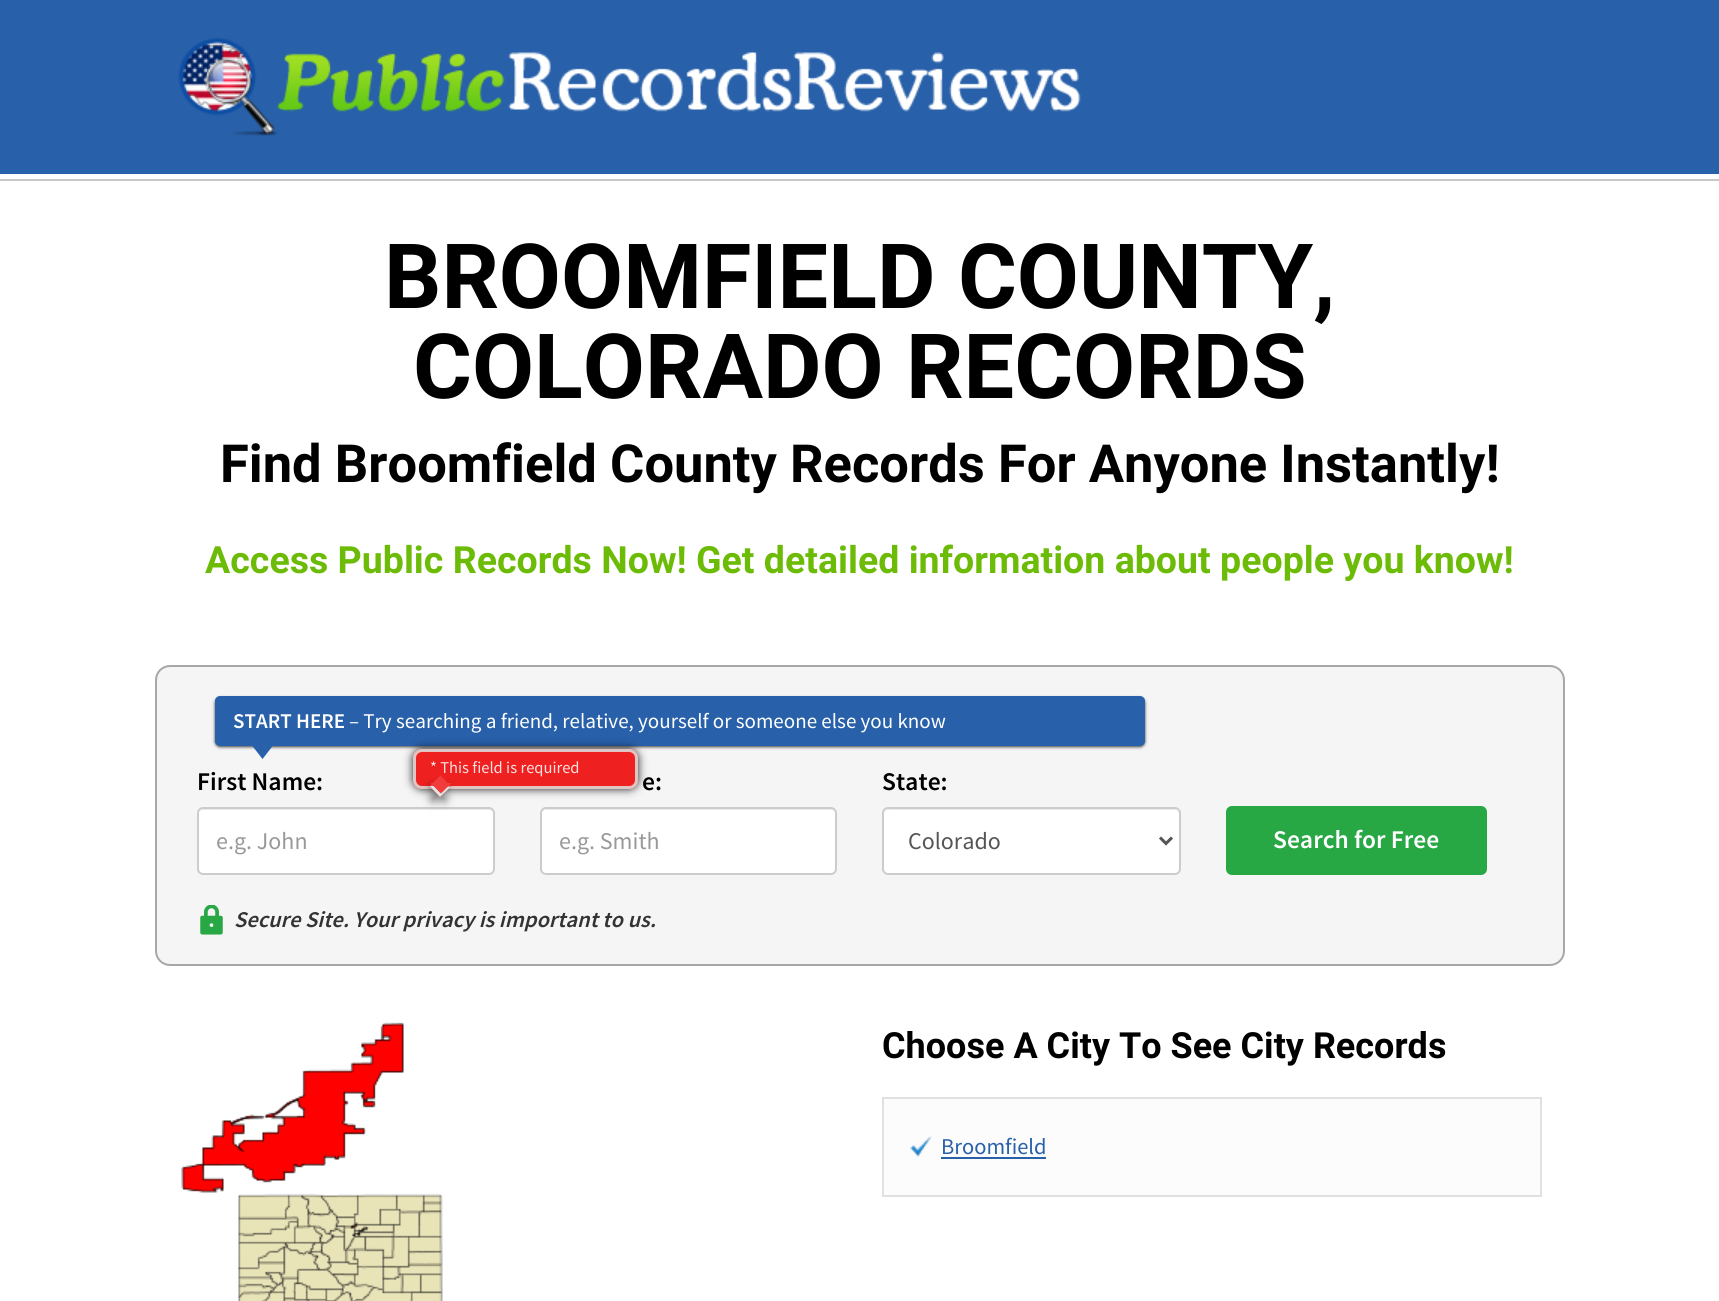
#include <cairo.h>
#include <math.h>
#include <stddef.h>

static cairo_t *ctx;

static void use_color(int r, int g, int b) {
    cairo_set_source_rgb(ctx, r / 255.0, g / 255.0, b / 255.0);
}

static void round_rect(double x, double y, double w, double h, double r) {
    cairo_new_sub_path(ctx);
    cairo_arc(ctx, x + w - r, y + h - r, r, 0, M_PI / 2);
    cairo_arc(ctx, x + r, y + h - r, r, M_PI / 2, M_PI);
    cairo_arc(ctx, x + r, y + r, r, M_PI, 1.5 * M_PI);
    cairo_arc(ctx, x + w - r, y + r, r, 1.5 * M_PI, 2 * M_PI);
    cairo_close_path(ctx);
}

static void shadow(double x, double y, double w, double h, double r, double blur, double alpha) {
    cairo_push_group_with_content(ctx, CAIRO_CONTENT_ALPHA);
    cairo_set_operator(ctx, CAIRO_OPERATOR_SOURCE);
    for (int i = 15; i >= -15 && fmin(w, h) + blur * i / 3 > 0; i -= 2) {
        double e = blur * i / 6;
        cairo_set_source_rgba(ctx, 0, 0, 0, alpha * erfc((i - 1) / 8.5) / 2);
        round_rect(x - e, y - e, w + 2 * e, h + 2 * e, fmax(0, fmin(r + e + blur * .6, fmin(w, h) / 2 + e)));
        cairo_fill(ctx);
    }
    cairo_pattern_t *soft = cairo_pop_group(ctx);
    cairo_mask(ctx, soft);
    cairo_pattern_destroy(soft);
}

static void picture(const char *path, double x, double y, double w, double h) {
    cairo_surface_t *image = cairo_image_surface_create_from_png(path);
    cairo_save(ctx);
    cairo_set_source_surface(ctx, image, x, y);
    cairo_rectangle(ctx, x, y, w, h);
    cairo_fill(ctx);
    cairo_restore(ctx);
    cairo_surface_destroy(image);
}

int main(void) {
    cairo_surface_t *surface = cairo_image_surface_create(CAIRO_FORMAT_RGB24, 1719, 1301);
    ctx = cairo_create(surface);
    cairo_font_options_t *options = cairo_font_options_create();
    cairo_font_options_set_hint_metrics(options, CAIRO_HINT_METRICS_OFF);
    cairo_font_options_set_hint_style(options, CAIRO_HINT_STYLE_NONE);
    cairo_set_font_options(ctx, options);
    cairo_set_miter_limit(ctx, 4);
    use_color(255, 255, 255);
    cairo_paint(ctx);
    use_color(40, 96, 169);
    cairo_rectangle(ctx, 0, 0, 1719, 174);
    cairo_fill(ctx);
    picture("img1.png", 178, 37, 903, 99);
    use_color(200, 200, 200);
    cairo_rectangle(ctx, 0, 179, 1719, 2);
    cairo_fill(ctx);
    cairo_select_font_face(ctx, "Roboto", CAIRO_FONT_SLANT_NORMAL, CAIRO_FONT_WEIGHT_BOLD);
    cairo_set_font_size(ctx, 90);
    use_color(0, 0, 0);
    cairo_move_to(ctx, 384, 308);
    cairo_show_text(ctx, "BROOMFIELD COUNTY,");
    cairo_move_to(ctx, 413, 398);
    cairo_show_text(ctx, "COLORADO RECORDS");
    cairo_set_font_size(ctx, 52.5);
    cairo_move_to(ctx, 220, 482);
    cairo_show_text(ctx, "Find Broomfield County Records For Anyone Instantly!");
    cairo_set_font_size(ctx, 37.5);
    use_color(108, 187, 6);
    cairo_move_to(ctx, 205, 573);
    cairo_show_text(ctx, "Access Public Records Now! Get detailed information about people you know!");
    use_color(245, 245, 245);
    round_rect(156, 666, 1408, 299, 14);
    cairo_fill_preserve(ctx);
    use_color(167, 167, 167);
    cairo_stroke(ctx);
    use_color(62, 62, 62);
    shadow(215, 698, 930, 49, 5, 1.5, 1);
    use_color(40, 96, 169);
    round_rect(215, 696, 930, 50, 5);
    cairo_fill(ctx);
    cairo_select_font_face(ctx, "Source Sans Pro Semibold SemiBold", CAIRO_FONT_SLANT_NORMAL, CAIRO_FONT_WEIGHT_NORMAL);
    cairo_set_font_size(ctx, 21);
    use_color(255, 255, 255);
    cairo_move_to(ctx, 233, 728);
    cairo_show_text(ctx, "START HERE");
    cairo_select_font_face(ctx, "Source Sans Pro", CAIRO_FONT_SLANT_NORMAL, CAIRO_FONT_WEIGHT_NORMAL);
    cairo_move_to(ctx, 349, 728);
    cairo_show_text(ctx, "– Try searching a friend, relative, yourself or someone else you know");
    use_color(40, 96, 169);
    cairo_new_path(ctx);
    cairo_move_to(ctx, 252, 745.5);
    cairo_line_to(ctx, 273, 745.5);
    cairo_line_to(ctx, 262.5, 759);
    cairo_close_path(ctx);
    cairo_fill(ctx);
    cairo_save(ctx);
    cairo_set_fill_rule(ctx, CAIRO_FILL_RULE_EVEN_ODD);
    cairo_new_path(ctx);
    cairo_move_to(ctx, 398, 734);
    cairo_line_to(ctx, 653, 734);
    cairo_line_to(ctx, 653, 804);
    cairo_line_to(ctx, 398, 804);
    cairo_close_path(ctx);
    cairo_move_to(ctx, 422, 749);
    cairo_line_to(ctx, 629, 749);
    cairo_curve_to(ctx, 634, 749, 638, 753, 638, 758);
    cairo_line_to(ctx, 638, 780);
    cairo_curve_to(ctx, 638, 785, 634, 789, 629, 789);
    cairo_line_to(ctx, 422, 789);
    cairo_curve_to(ctx, 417, 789, 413, 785, 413, 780);
    cairo_line_to(ctx, 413, 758);
    cairo_curve_to(ctx, 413, 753, 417, 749, 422, 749);
    cairo_close_path(ctx);
    cairo_clip(ctx);
    use_color(0, 0, 0);
    shadow(413, 749, 225, 40, 9, 4.5, 0.87);
    cairo_restore(ctx);
    cairo_set_source_rgba(ctx, 0.933, 0.004, 0.004, 0.87);
    round_rect(413, 749, 225, 40, 9);
    cairo_fill(ctx);
    round_rect(414.5, 750.5, 222, 37, 7.5);
    cairo_set_source_rgba(ctx, 0.867, 0.867, 0.867, 0.87);
    cairo_set_line_width(ctx, 3);
    cairo_stroke(ctx);
    cairo_set_font_size(ctx, 16.5);
    use_color(253, 226, 226);
    cairo_move_to(ctx, 430, 773);
    cairo_show_text(ctx, "* This field is required");
    use_color(255, 255, 255);
    round_rect(197, 807, 298, 68, 6);
    cairo_fill(ctx);
    use_color(236, 236, 236);
    cairo_new_path(ctx);
    cairo_move_to(ctx, 202, 810);
    cairo_line_to(ctx, 489, 810);
    cairo_curve_to(ctx, 491, 810, 494, 812, 494, 814);
    cairo_curve_to(ctx, 494, 811, 492, 809, 489, 809);
    cairo_line_to(ctx, 203, 809);
    cairo_curve_to(ctx, 200, 809, 198, 811, 198, 814);
    cairo_curve_to(ctx, 198, 812, 200, 810, 202, 810);
    cairo_close_path(ctx);
    cairo_fill(ctx);
    round_rect(198, 808, 296, 66, 5);
    use_color(204, 204, 204);
    cairo_set_line_width(ctx, 2);
    cairo_stroke(ctx);
    use_color(0, 0, 0);
    shadow(431, 786, 15, 15, 0, 4.5, 0.45);
    use_color(240, 60, 60);
    cairo_new_path(ctx);
    cairo_move_to(ctx, 429.5, 786);
    cairo_line_to(ctx, 440.5, 775.5);
    cairo_line_to(ctx, 451, 786.5);
    cairo_line_to(ctx, 440, 797);
    cairo_close_path(ctx);
    cairo_fill(ctx);
    use_color(227, 227, 227);
    cairo_new_path(ctx);
    cairo_move_to(ctx, 451, 786.5);
    cairo_line_to(ctx, 440, 797);
    cairo_line_to(ctx, 440, 792.5);
    cairo_line_to(ctx, 446.5, 786.5);
    cairo_close_path(ctx);
    cairo_move_to(ctx, 440, 797);
    cairo_line_to(ctx, 429.5, 786);
    cairo_line_to(ctx, 434, 786);
    cairo_line_to(ctx, 440, 792.5);
    cairo_close_path(ctx);
    cairo_fill(ctx);
    use_color(240, 60, 60);
    cairo_new_path(ctx);
    cairo_move_to(ctx, 430.5, 783);
    cairo_line_to(ctx, 451.5, 783);
    cairo_line_to(ctx, 441, 793.5);
    cairo_close_path(ctx);
    cairo_fill(ctx);
    cairo_select_font_face(ctx, "Source Sans Pro Semibold SemiBold", CAIRO_FONT_SLANT_NORMAL, CAIRO_FONT_WEIGHT_NORMAL);
    cairo_set_font_size(ctx, 25.5);
    use_color(0, 0, 0);
    cairo_move_to(ctx, 197, 790);
    cairo_show_text(ctx, "First Name:");
    cairo_select_font_face(ctx, "Source Sans Pro", CAIRO_FONT_SLANT_NORMAL, CAIRO_FONT_WEIGHT_NORMAL);
    cairo_set_font_size(ctx, 24);
    use_color(153, 153, 153);
    cairo_move_to(ctx, 216, 849);
    cairo_show_text(ctx, "e.g. John");
    cairo_select_font_face(ctx, "Source Sans Pro Semibold SemiBold", CAIRO_FONT_SLANT_NORMAL, CAIRO_FONT_WEIGHT_NORMAL);
    cairo_set_font_size(ctx, 25.5);
    use_color(0, 0, 0);
    cairo_move_to(ctx, 642, 790);
    cairo_show_text(ctx, "e:");
    use_color(255, 255, 255);
    round_rect(540, 807, 297, 68, 6);
    cairo_fill(ctx);
    use_color(236, 236, 236);
    cairo_new_path(ctx);
    cairo_move_to(ctx, 546, 810);
    cairo_line_to(ctx, 831, 810);
    cairo_curve_to(ctx, 833, 810, 836, 812, 836, 814);
    cairo_curve_to(ctx, 836, 811, 834, 809, 831, 809);
    cairo_line_to(ctx, 547, 809);
    cairo_curve_to(ctx, 544, 809, 542, 811, 542, 814);
    cairo_curve_to(ctx, 542, 812, 544, 810, 546, 810);
    cairo_close_path(ctx);
    cairo_fill(ctx);
    round_rect(541, 808, 295, 66, 5);
    use_color(204, 204, 204);
    cairo_stroke(ctx);
    cairo_select_font_face(ctx, "Source Sans Pro", CAIRO_FONT_SLANT_NORMAL, CAIRO_FONT_WEIGHT_NORMAL);
    cairo_set_font_size(ctx, 24);
    use_color(153, 153, 153);
    cairo_move_to(ctx, 559, 849);
    cairo_show_text(ctx, "e.g. Smith");
    cairo_select_font_face(ctx, "Source Sans Pro Semibold SemiBold", CAIRO_FONT_SLANT_NORMAL, CAIRO_FONT_WEIGHT_NORMAL);
    cairo_set_font_size(ctx, 25.5);
    use_color(0, 0, 0);
    cairo_move_to(ctx, 882, 790);
    cairo_show_text(ctx, "State:");
    use_color(255, 255, 255);
    round_rect(882, 807, 299, 68, 6);
    cairo_fill(ctx);
    use_color(236, 236, 236);
    cairo_new_path(ctx);
    cairo_move_to(ctx, 888, 810);
    cairo_line_to(ctx, 1174, 810);
    cairo_curve_to(ctx, 1177, 810, 1179, 812, 1179, 814);
    cairo_curve_to(ctx, 1179, 811, 1177, 809, 1174, 809);
    cairo_line_to(ctx, 889, 809);
    cairo_curve_to(ctx, 886, 809, 884, 811, 884, 814);
    cairo_curve_to(ctx, 884, 812, 886, 810, 888, 810);
    cairo_close_path(ctx);
    cairo_fill(ctx);
    round_rect(883, 808, 297, 66, 5);
    use_color(204, 204, 204);
    cairo_stroke(ctx);
    cairo_new_path(ctx);
    cairo_move_to(ctx, 1160, 837.5);
    cairo_line_to(ctx, 1166, 843.5);
    cairo_line_to(ctx, 1172, 837.5);
    use_color(85, 85, 85);
    cairo_set_line_width(ctx, 3);
    cairo_stroke(ctx);
    cairo_select_font_face(ctx, "Source Sans Pro", CAIRO_FONT_SLANT_NORMAL, CAIRO_FONT_WEIGHT_NORMAL);
    cairo_set_font_size(ctx, 24);
    cairo_move_to(ctx, 908, 849);
    cairo_show_text(ctx, "Colorado");
    use_color(40, 167, 69);
    round_rect(1227, 807, 259, 67, 5);
    cairo_fill_preserve(ctx);
    cairo_set_line_width(ctx, 2);
    cairo_stroke(ctx);
    cairo_select_font_face(ctx, "Source Sans Pro Semibold SemiBold", CAIRO_FONT_SLANT_NORMAL, CAIRO_FONT_WEIGHT_NORMAL);
    cairo_set_font_size(ctx, 25.5);
    use_color(255, 255, 255);
    cairo_move_to(ctx, 1273, 848);
    cairo_show_text(ctx, "Search for Free");
    picture("img2.png", 200, 905, 23, 30);
    cairo_select_font_face(ctx, "Source Sans Pro Semibold SemiBold", CAIRO_FONT_SLANT_ITALIC, CAIRO_FONT_WEIGHT_NORMAL);
    cairo_set_font_size(ctx, 22.5);
    use_color(51, 51, 51);
    cairo_move_to(ctx, 234, 927);
    cairo_show_text(ctx, "Secure Site. Your privacy is important to us.");
    picture("img3.png", 181, 1022, 262, 279);
    cairo_select_font_face(ctx, "Roboto", CAIRO_FONT_SLANT_NORMAL, CAIRO_FONT_WEIGHT_BOLD);
    cairo_set_font_size(ctx, 36);
    use_color(0, 0, 0);
    cairo_move_to(ctx, 882, 1058);
    cairo_show_text(ctx, "Choose A City To See City Records");
    use_color(252, 252, 252);
    cairo_rectangle(ctx, 883, 1098, 658, 98);
    cairo_fill_preserve(ctx);
    use_color(224, 224, 224);
    cairo_stroke(ctx);
    picture("img4.png", 910, 1135, 22, 22);
    cairo_select_font_face(ctx, "Source Sans Pro", CAIRO_FONT_SLANT_NORMAL, CAIRO_FONT_WEIGHT_NORMAL);
    cairo_set_font_size(ctx, 22.5);
    use_color(40, 96, 169);
    cairo_move_to(ctx, 941, 1154);
    cairo_show_text(ctx, "Broomfield");
    cairo_rectangle(ctx, 941, 1157, 105, 2);
    cairo_fill(ctx);
    cairo_surface_write_to_png(surface, "result.png");
    cairo_font_options_destroy(options);
    cairo_destroy(ctx);
    cairo_surface_destroy(surface);
    return 0;
}
